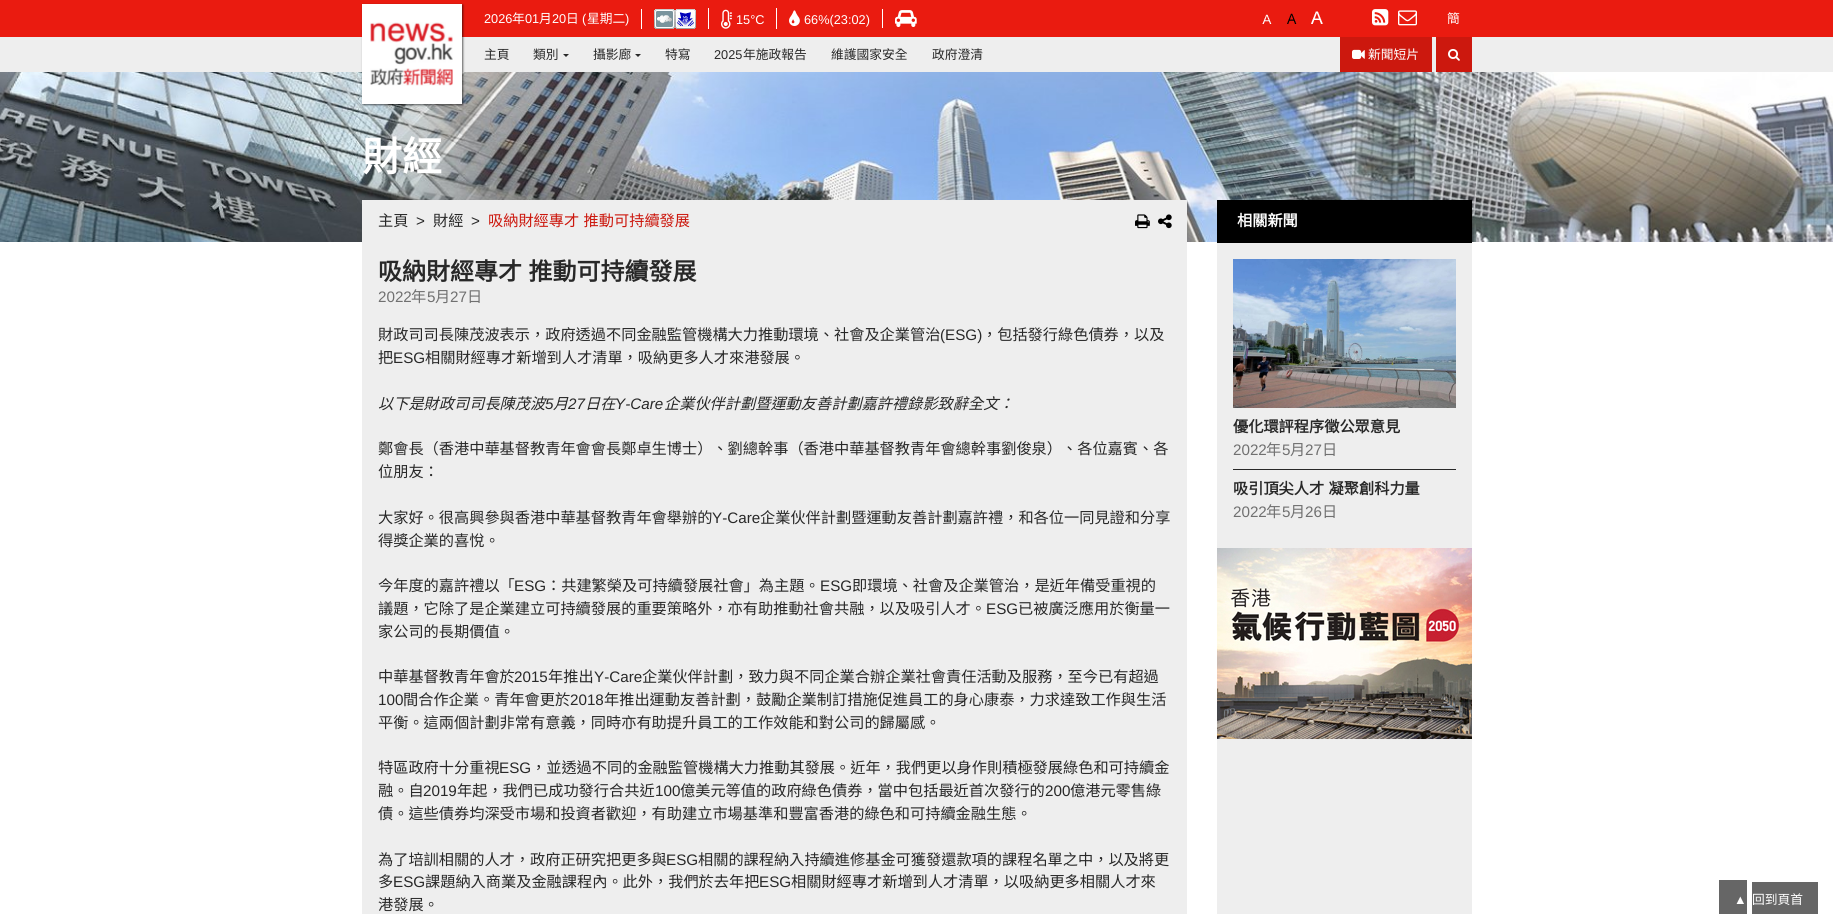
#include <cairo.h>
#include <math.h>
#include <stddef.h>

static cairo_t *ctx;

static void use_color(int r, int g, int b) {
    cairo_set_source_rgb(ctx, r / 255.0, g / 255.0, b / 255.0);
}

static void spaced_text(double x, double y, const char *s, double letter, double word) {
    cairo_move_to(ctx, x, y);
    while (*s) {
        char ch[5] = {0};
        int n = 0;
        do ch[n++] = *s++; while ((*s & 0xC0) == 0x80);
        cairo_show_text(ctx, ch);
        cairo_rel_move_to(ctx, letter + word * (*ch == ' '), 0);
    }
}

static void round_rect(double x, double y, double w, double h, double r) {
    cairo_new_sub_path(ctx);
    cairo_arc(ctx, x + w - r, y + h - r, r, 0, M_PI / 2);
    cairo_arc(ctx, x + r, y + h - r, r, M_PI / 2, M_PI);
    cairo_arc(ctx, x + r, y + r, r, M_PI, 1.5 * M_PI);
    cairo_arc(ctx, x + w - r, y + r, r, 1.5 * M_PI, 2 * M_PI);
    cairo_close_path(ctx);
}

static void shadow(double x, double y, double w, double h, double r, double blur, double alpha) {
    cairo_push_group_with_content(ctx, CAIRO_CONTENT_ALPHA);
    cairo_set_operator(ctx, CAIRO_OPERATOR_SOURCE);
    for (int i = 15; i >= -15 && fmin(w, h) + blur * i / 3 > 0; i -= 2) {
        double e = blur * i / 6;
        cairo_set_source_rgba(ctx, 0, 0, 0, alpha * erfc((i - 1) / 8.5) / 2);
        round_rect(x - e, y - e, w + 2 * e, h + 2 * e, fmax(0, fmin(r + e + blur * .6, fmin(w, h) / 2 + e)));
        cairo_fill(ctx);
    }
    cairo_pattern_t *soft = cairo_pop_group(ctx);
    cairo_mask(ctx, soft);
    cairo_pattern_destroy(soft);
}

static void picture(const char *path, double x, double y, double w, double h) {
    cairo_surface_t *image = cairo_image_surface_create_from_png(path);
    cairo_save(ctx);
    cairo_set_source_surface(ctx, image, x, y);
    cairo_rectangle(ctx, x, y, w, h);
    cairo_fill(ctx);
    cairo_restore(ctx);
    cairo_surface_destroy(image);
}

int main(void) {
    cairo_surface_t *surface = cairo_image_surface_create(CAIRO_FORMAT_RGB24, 1833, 914);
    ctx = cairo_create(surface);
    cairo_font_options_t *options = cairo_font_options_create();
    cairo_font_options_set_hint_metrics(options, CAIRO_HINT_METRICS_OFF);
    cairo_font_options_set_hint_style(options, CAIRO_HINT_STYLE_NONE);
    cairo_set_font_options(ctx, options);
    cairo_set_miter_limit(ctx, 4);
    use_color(255, 255, 255);
    cairo_paint(ctx);
    use_color(234, 27, 16);
    cairo_rectangle(ctx, 0, 0, 1833, 37);
    cairo_fill(ctx);
    use_color(238, 238, 238);
    cairo_rectangle(ctx, 0, 37, 1833, 35);
    cairo_fill(ctx);
    picture("img14.png", 0, 72, 1833, 170);
    use_color(0, 0, 0);
    shadow(363, 5, 100, 100, 0, 1, 0.6);
    use_color(255, 255, 255);
    cairo_rectangle(ctx, 362, 4, 100, 100);
    cairo_fill(ctx);
    picture("img1.png", 370, 22, 83, 64);
    cairo_select_font_face(ctx, "Liberation Sans", CAIRO_FONT_SLANT_NORMAL, CAIRO_FONT_WEIGHT_NORMAL);
    cairo_set_font_size(ctx, 12.75);
    cairo_move_to(ctx, 484, 23);
    cairo_show_text(ctx, "2026");
    cairo_select_font_face(ctx, "Noto Sans CJK HK", CAIRO_FONT_SLANT_NORMAL, CAIRO_FONT_WEIGHT_NORMAL);
    cairo_move_to(ctx, 512, 23);
    cairo_show_text(ctx, "年");
    cairo_select_font_face(ctx, "Liberation Sans", CAIRO_FONT_SLANT_NORMAL, CAIRO_FONT_WEIGHT_NORMAL);
    cairo_move_to(ctx, 525, 23);
    cairo_show_text(ctx, "01");
    cairo_select_font_face(ctx, "Noto Sans CJK HK", CAIRO_FONT_SLANT_NORMAL, CAIRO_FONT_WEIGHT_NORMAL);
    cairo_move_to(ctx, 539, 23);
    cairo_show_text(ctx, "月");
    cairo_select_font_face(ctx, "Liberation Sans", CAIRO_FONT_SLANT_NORMAL, CAIRO_FONT_WEIGHT_NORMAL);
    cairo_move_to(ctx, 552, 23);
    cairo_show_text(ctx, "20");
    cairo_select_font_face(ctx, "Noto Sans CJK HK", CAIRO_FONT_SLANT_NORMAL, CAIRO_FONT_WEIGHT_NORMAL);
    cairo_move_to(ctx, 566, 23);
    cairo_show_text(ctx, "日");
    cairo_select_font_face(ctx, "Liberation Sans", CAIRO_FONT_SLANT_NORMAL, CAIRO_FONT_WEIGHT_NORMAL);
    cairo_move_to(ctx, 582, 23);
    cairo_show_text(ctx, "(");
    cairo_select_font_face(ctx, "Noto Sans CJK HK", CAIRO_FONT_SLANT_NORMAL, CAIRO_FONT_WEIGHT_NORMAL);
    cairo_move_to(ctx, 587, 23);
    cairo_show_text(ctx, "星期二");
    cairo_select_font_face(ctx, "Liberation Sans", CAIRO_FONT_SLANT_NORMAL, CAIRO_FONT_WEIGHT_NORMAL);
    cairo_move_to(ctx, 625, 23);
    cairo_show_text(ctx, ")");
    cairo_rectangle(ctx, 641, 9, 1, 20);
    cairo_fill(ctx);
    picture("img2.png", 654, 9, 21, 20);
    picture("img3.png", 675, 9, 21, 20);
    cairo_rectangle(ctx, 708, 8, 1, 21);
    cairo_fill(ctx);
    picture("img4.png", 721, 9, 11, 20);
    cairo_move_to(ctx, 736, 24);
    cairo_show_text(ctx, "15°C");
    cairo_rectangle(ctx, 776, 8, 1, 21);
    cairo_fill(ctx);
    picture("img5.png", 789, 10, 11, 16);
    cairo_move_to(ctx, 804, 24);
    cairo_show_text(ctx, "66%(23:02)");
    cairo_rectangle(ctx, 882, 9, 1, 19);
    cairo_fill(ctx);
    picture("img6.png", 895, 10, 22, 17);
    picture("img7.png", 1262, 14, 10, 10);
    picture("img8.png", 1287, 13, 10, 11);
    picture("img9.png", 1311, 11, 12, 13);
    picture("img10.png", 1372, 9, 17, 17);
    picture("img11.png", 1398, 10, 19, 16);
    cairo_select_font_face(ctx, "Noto Sans CJK HK", CAIRO_FONT_SLANT_NORMAL, CAIRO_FONT_WEIGHT_NORMAL);
    cairo_move_to(ctx, 1447, 23);
    cairo_show_text(ctx, "簡");
    use_color(40, 40, 40);
    cairo_move_to(ctx, 484, 59);
    cairo_show_text(ctx, "主頁");
    cairo_move_to(ctx, 533, 59);
    cairo_show_text(ctx, "類別");
    cairo_new_path(ctx);
    cairo_move_to(ctx, 563, 54);
    cairo_line_to(ctx, 569, 54);
    cairo_line_to(ctx, 566, 57);
    cairo_close_path(ctx);
    cairo_fill(ctx);
    cairo_move_to(ctx, 593, 59);
    cairo_show_text(ctx, "攝影廊");
    cairo_new_path(ctx);
    cairo_move_to(ctx, 635, 54);
    cairo_line_to(ctx, 641, 54);
    cairo_line_to(ctx, 638, 57);
    cairo_close_path(ctx);
    cairo_fill(ctx);
    cairo_move_to(ctx, 665, 59);
    cairo_show_text(ctx, "特寫");
    cairo_select_font_face(ctx, "Liberation Sans", CAIRO_FONT_SLANT_NORMAL, CAIRO_FONT_WEIGHT_NORMAL);
    cairo_move_to(ctx, 714, 59);
    cairo_show_text(ctx, "2025");
    cairo_select_font_face(ctx, "Noto Sans CJK HK", CAIRO_FONT_SLANT_NORMAL, CAIRO_FONT_WEIGHT_NORMAL);
    cairo_move_to(ctx, 743, 59);
    cairo_show_text(ctx, "年施政報告");
    cairo_move_to(ctx, 831, 59);
    cairo_show_text(ctx, "維護國家安全");
    cairo_move_to(ctx, 932, 59);
    cairo_show_text(ctx, "政府澄清");
    use_color(204, 24, 14);
    cairo_rectangle(ctx, 1340, 37, 92, 35);
    cairo_fill(ctx);
    picture("img12.png", 1352, 49, 13, 10);
    use_color(255, 255, 255);
    cairo_move_to(ctx, 1368, 59);
    cairo_show_text(ctx, "新聞短片");
    use_color(204, 24, 14);
    cairo_rectangle(ctx, 1436, 37, 36, 35);
    cairo_fill(ctx);
    picture("img13.png", 1448, 49, 12, 12);
    cairo_select_font_face(ctx, "Noto Sans CJK HK", CAIRO_FONT_SLANT_NORMAL, CAIRO_FONT_WEIGHT_BOLD);
    cairo_set_font_size(ctx, 40);
    use_color(255, 255, 255);
    cairo_move_to(ctx, 362, 171);
    cairo_show_text(ctx, "財經");
    use_color(238, 238, 238);
    cairo_rectangle(ctx, 362, 200, 825, 714);
    cairo_fill(ctx);
    cairo_select_font_face(ctx, "Noto Sans CJK HK", CAIRO_FONT_SLANT_NORMAL, CAIRO_FONT_WEIGHT_NORMAL);
    cairo_set_font_size(ctx, 15.2);
    use_color(40, 40, 40);
    cairo_move_to(ctx, 378, 226);
    cairo_show_text(ctx, "主頁");
    cairo_select_font_face(ctx, "Liberation Sans", CAIRO_FONT_SLANT_NORMAL, CAIRO_FONT_WEIGHT_NORMAL);
    cairo_move_to(ctx, 416, 226);
    cairo_show_text(ctx, ">");
    cairo_select_font_face(ctx, "Noto Sans CJK HK", CAIRO_FONT_SLANT_NORMAL, CAIRO_FONT_WEIGHT_NORMAL);
    cairo_move_to(ctx, 433, 226);
    cairo_show_text(ctx, "財經");
    cairo_select_font_face(ctx, "Liberation Sans", CAIRO_FONT_SLANT_NORMAL, CAIRO_FONT_WEIGHT_NORMAL);
    cairo_move_to(ctx, 471, 226);
    cairo_show_text(ctx, ">");
    cairo_select_font_face(ctx, "Noto Sans CJK HK", CAIRO_FONT_SLANT_NORMAL, CAIRO_FONT_WEIGHT_NORMAL);
    use_color(204, 24, 14);
    spaced_text(488, 226, "吸納財經專才 推動可持續發展", 0, 1);
    picture("img15.png", 1135, 214, 15, 15);
    picture("img16.png", 1158, 214, 14, 15);
    cairo_select_font_face(ctx, "Noto Sans CJK HK", CAIRO_FONT_SLANT_NORMAL, CAIRO_FONT_WEIGHT_BOLD);
    cairo_set_font_size(ctx, 24);
    use_color(40, 40, 40);
    spaced_text(378, 280, "吸納財經專才 推動可持續發展", 0, 1);
    cairo_select_font_face(ctx, "Liberation Sans", CAIRO_FONT_SLANT_NORMAL, CAIRO_FONT_WEIGHT_NORMAL);
    cairo_set_font_size(ctx, 15.2);
    use_color(112, 112, 112);
    cairo_move_to(ctx, 378, 302);
    cairo_show_text(ctx, "2022");
    cairo_select_font_face(ctx, "Noto Sans CJK HK", CAIRO_FONT_SLANT_NORMAL, CAIRO_FONT_WEIGHT_NORMAL);
    cairo_move_to(ctx, 411, 302);
    cairo_show_text(ctx, "年");
    cairo_select_font_face(ctx, "Liberation Sans", CAIRO_FONT_SLANT_NORMAL, CAIRO_FONT_WEIGHT_NORMAL);
    cairo_move_to(ctx, 427, 302);
    cairo_show_text(ctx, "5");
    cairo_select_font_face(ctx, "Noto Sans CJK HK", CAIRO_FONT_SLANT_NORMAL, CAIRO_FONT_WEIGHT_NORMAL);
    cairo_move_to(ctx, 435, 302);
    cairo_show_text(ctx, "月");
    cairo_select_font_face(ctx, "Liberation Sans", CAIRO_FONT_SLANT_NORMAL, CAIRO_FONT_WEIGHT_NORMAL);
    cairo_move_to(ctx, 450, 302);
    cairo_show_text(ctx, "27");
    cairo_select_font_face(ctx, "Noto Sans CJK HK", CAIRO_FONT_SLANT_NORMAL, CAIRO_FONT_WEIGHT_NORMAL);
    cairo_move_to(ctx, 467, 302);
    cairo_show_text(ctx, "日");
    use_color(40, 40, 40);
    cairo_move_to(ctx, 378, 340);
    cairo_show_text(ctx, "財政司司長陳茂波表示，政府透過不同金融監管機構大力推動環境、社會及企業管治");
    cairo_select_font_face(ctx, "Liberation Sans", CAIRO_FONT_SLANT_NORMAL, CAIRO_FONT_WEIGHT_NORMAL);
    cairo_move_to(ctx, 940, 340);
    cairo_show_text(ctx, "(ESG)");
    cairo_select_font_face(ctx, "Noto Sans CJK HK", CAIRO_FONT_SLANT_NORMAL, CAIRO_FONT_WEIGHT_NORMAL);
    cairo_move_to(ctx, 982, 340);
    cairo_show_text(ctx, "，包括發行綠色債券，以及");
    cairo_move_to(ctx, 378, 363);
    cairo_show_text(ctx, "把");
    cairo_select_font_face(ctx, "Liberation Sans", CAIRO_FONT_SLANT_NORMAL, CAIRO_FONT_WEIGHT_NORMAL);
    cairo_move_to(ctx, 393, 363);
    cairo_show_text(ctx, "ESG");
    cairo_select_font_face(ctx, "Noto Sans CJK HK", CAIRO_FONT_SLANT_NORMAL, CAIRO_FONT_WEIGHT_NORMAL);
    cairo_move_to(ctx, 425, 363);
    cairo_show_text(ctx, "相關財經專才新增到人才清單，吸納更多人才來港發展。");
    cairo_select_font_face(ctx, "Noto Sans CJK HK", CAIRO_FONT_SLANT_ITALIC, CAIRO_FONT_WEIGHT_NORMAL);
    cairo_move_to(ctx, 378, 409);
    cairo_show_text(ctx, "以下是財政司司長陳茂波");
    cairo_select_font_face(ctx, "Liberation Sans", CAIRO_FONT_SLANT_ITALIC, CAIRO_FONT_WEIGHT_NORMAL);
    cairo_move_to(ctx, 545, 409);
    cairo_show_text(ctx, "5");
    cairo_select_font_face(ctx, "Noto Sans CJK HK", CAIRO_FONT_SLANT_ITALIC, CAIRO_FONT_WEIGHT_NORMAL);
    cairo_move_to(ctx, 553, 409);
    cairo_show_text(ctx, "月");
    cairo_select_font_face(ctx, "Liberation Sans", CAIRO_FONT_SLANT_ITALIC, CAIRO_FONT_WEIGHT_NORMAL);
    cairo_move_to(ctx, 568, 409);
    cairo_show_text(ctx, "27");
    cairo_select_font_face(ctx, "Noto Sans CJK HK", CAIRO_FONT_SLANT_ITALIC, CAIRO_FONT_WEIGHT_NORMAL);
    cairo_move_to(ctx, 585, 409);
    cairo_show_text(ctx, "日在");
    cairo_select_font_face(ctx, "Liberation Sans", CAIRO_FONT_SLANT_ITALIC, CAIRO_FONT_WEIGHT_NORMAL);
    cairo_move_to(ctx, 615, 409);
    cairo_show_text(ctx, "Y-Care");
    cairo_select_font_face(ctx, "Noto Sans CJK HK", CAIRO_FONT_SLANT_ITALIC, CAIRO_FONT_WEIGHT_NORMAL);
    cairo_move_to(ctx, 664, 409);
    cairo_show_text(ctx, "企業伙伴計劃暨運動友善計劃嘉許禮錄影致辭全文：");
    cairo_select_font_face(ctx, "Noto Sans CJK HK", CAIRO_FONT_SLANT_NORMAL, CAIRO_FONT_WEIGHT_NORMAL);
    cairo_move_to(ctx, 378, 454);
    cairo_show_text(ctx, "鄭會長（香港中華基督教青年會會長鄭卓生博士）、劉總幹事（香港中華基督教青年會總幹事劉俊泉）、各位嘉賓、各");
    cairo_move_to(ctx, 378, 477);
    cairo_show_text(ctx, "位朋友：");
    cairo_move_to(ctx, 378, 523);
    cairo_show_text(ctx, "大家好。很高興參與香港中華基督教青年會舉辦的");
    cairo_select_font_face(ctx, "Liberation Sans", CAIRO_FONT_SLANT_NORMAL, CAIRO_FONT_WEIGHT_NORMAL);
    cairo_move_to(ctx, 712, 523);
    cairo_show_text(ctx, "Y-Care");
    cairo_select_font_face(ctx, "Noto Sans CJK HK", CAIRO_FONT_SLANT_NORMAL, CAIRO_FONT_WEIGHT_NORMAL);
    cairo_move_to(ctx, 760, 523);
    cairo_show_text(ctx, "企業伙伴計劃暨運動友善計劃嘉許禮，和各位一同見證和分享");
    cairo_move_to(ctx, 378, 546);
    cairo_show_text(ctx, "得獎企業的喜悅。");
    cairo_move_to(ctx, 378, 591);
    cairo_show_text(ctx, "今年度的嘉許禮以「");
    cairo_select_font_face(ctx, "Liberation Sans", CAIRO_FONT_SLANT_NORMAL, CAIRO_FONT_WEIGHT_NORMAL);
    cairo_move_to(ctx, 514, 591);
    cairo_show_text(ctx, "ESG");
    cairo_select_font_face(ctx, "Noto Sans CJK HK", CAIRO_FONT_SLANT_NORMAL, CAIRO_FONT_WEIGHT_NORMAL);
    cairo_move_to(ctx, 546, 591);
    cairo_show_text(ctx, "：共建繁榮及可持續發展社會」為主題。");
    cairo_select_font_face(ctx, "Liberation Sans", CAIRO_FONT_SLANT_NORMAL, CAIRO_FONT_WEIGHT_NORMAL);
    cairo_move_to(ctx, 820, 591);
    cairo_show_text(ctx, "ESG");
    cairo_select_font_face(ctx, "Noto Sans CJK HK", CAIRO_FONT_SLANT_NORMAL, CAIRO_FONT_WEIGHT_NORMAL);
    cairo_move_to(ctx, 852, 591);
    cairo_show_text(ctx, "即環境、社會及企業管治，是近年備受重視的");
    cairo_move_to(ctx, 378, 614);
    cairo_show_text(ctx, "議題，它除了是企業建立可持續發展的重要策略外，亦有助推動社會共融，以及吸引人才。");
    cairo_select_font_face(ctx, "Liberation Sans", CAIRO_FONT_SLANT_NORMAL, CAIRO_FONT_WEIGHT_NORMAL);
    cairo_move_to(ctx, 986, 614);
    cairo_show_text(ctx, "ESG");
    cairo_select_font_face(ctx, "Noto Sans CJK HK", CAIRO_FONT_SLANT_NORMAL, CAIRO_FONT_WEIGHT_NORMAL);
    cairo_move_to(ctx, 1018, 614);
    cairo_show_text(ctx, "已被廣泛應用於衡量一");
    cairo_move_to(ctx, 378, 637);
    cairo_show_text(ctx, "家公司的長期價值。");
    cairo_move_to(ctx, 378, 682);
    cairo_show_text(ctx, "中華基督教青年會於");
    cairo_select_font_face(ctx, "Liberation Sans", CAIRO_FONT_SLANT_NORMAL, CAIRO_FONT_WEIGHT_NORMAL);
    cairo_move_to(ctx, 514, 682);
    cairo_show_text(ctx, "2015");
    cairo_select_font_face(ctx, "Noto Sans CJK HK", CAIRO_FONT_SLANT_NORMAL, CAIRO_FONT_WEIGHT_NORMAL);
    cairo_move_to(ctx, 548, 682);
    cairo_show_text(ctx, "年推出");
    cairo_select_font_face(ctx, "Liberation Sans", CAIRO_FONT_SLANT_NORMAL, CAIRO_FONT_WEIGHT_NORMAL);
    cairo_move_to(ctx, 594, 682);
    cairo_show_text(ctx, "Y-Care");
    cairo_select_font_face(ctx, "Noto Sans CJK HK", CAIRO_FONT_SLANT_NORMAL, CAIRO_FONT_WEIGHT_NORMAL);
    cairo_move_to(ctx, 642, 682);
    cairo_show_text(ctx, "企業伙伴計劃，致力與不同企業合辦企業社會責任活動及服務，至今已有超過");
    cairo_select_font_face(ctx, "Liberation Sans", CAIRO_FONT_SLANT_NORMAL, CAIRO_FONT_WEIGHT_NORMAL);
    cairo_move_to(ctx, 378, 705);
    cairo_show_text(ctx, "100");
    cairo_select_font_face(ctx, "Noto Sans CJK HK", CAIRO_FONT_SLANT_NORMAL, CAIRO_FONT_WEIGHT_NORMAL);
    cairo_move_to(ctx, 403, 705);
    cairo_show_text(ctx, "間合作企業。青年會更於");
    cairo_select_font_face(ctx, "Liberation Sans", CAIRO_FONT_SLANT_NORMAL, CAIRO_FONT_WEIGHT_NORMAL);
    cairo_move_to(ctx, 570, 705);
    cairo_show_text(ctx, "2018");
    cairo_select_font_face(ctx, "Noto Sans CJK HK", CAIRO_FONT_SLANT_NORMAL, CAIRO_FONT_WEIGHT_NORMAL);
    cairo_move_to(ctx, 604, 705);
    cairo_show_text(ctx, "年推出運動友善計劃，鼓勵企業制訂措施促進員工的身心康泰，力求達致工作與生活");
    cairo_move_to(ctx, 378, 728);
    cairo_show_text(ctx, "平衡。這兩個計劃非常有意義，同時亦有助提升員工的工作效能和對公司的歸屬感。");
    cairo_move_to(ctx, 378, 773);
    cairo_show_text(ctx, "特區政府十分重視");
    cairo_select_font_face(ctx, "Liberation Sans", CAIRO_FONT_SLANT_NORMAL, CAIRO_FONT_WEIGHT_NORMAL);
    cairo_move_to(ctx, 499, 773);
    cairo_show_text(ctx, "ESG");
    cairo_select_font_face(ctx, "Noto Sans CJK HK", CAIRO_FONT_SLANT_NORMAL, CAIRO_FONT_WEIGHT_NORMAL);
    cairo_move_to(ctx, 531, 773);
    cairo_show_text(ctx, "，並透過不同的金融監管機構大力推動其發展。近年，我們更以身作則積極發展綠色和可持續金");
    cairo_move_to(ctx, 378, 796);
    cairo_show_text(ctx, "融。自");
    cairo_select_font_face(ctx, "Liberation Sans", CAIRO_FONT_SLANT_NORMAL, CAIRO_FONT_WEIGHT_NORMAL);
    cairo_move_to(ctx, 423, 796);
    cairo_show_text(ctx, "2019");
    cairo_select_font_face(ctx, "Noto Sans CJK HK", CAIRO_FONT_SLANT_NORMAL, CAIRO_FONT_WEIGHT_NORMAL);
    cairo_move_to(ctx, 457, 796);
    cairo_show_text(ctx, "年起，我們已成功發行合共近");
    cairo_select_font_face(ctx, "Liberation Sans", CAIRO_FONT_SLANT_NORMAL, CAIRO_FONT_WEIGHT_NORMAL);
    cairo_move_to(ctx, 655, 796);
    cairo_show_text(ctx, "100");
    cairo_select_font_face(ctx, "Noto Sans CJK HK", CAIRO_FONT_SLANT_NORMAL, CAIRO_FONT_WEIGHT_NORMAL);
    cairo_move_to(ctx, 680, 796);
    cairo_show_text(ctx, "億美元等值的政府綠色債券，當中包括最近首次發行的");
    cairo_select_font_face(ctx, "Liberation Sans", CAIRO_FONT_SLANT_NORMAL, CAIRO_FONT_WEIGHT_NORMAL);
    cairo_move_to(ctx, 1045, 796);
    cairo_show_text(ctx, "200");
    cairo_select_font_face(ctx, "Noto Sans CJK HK", CAIRO_FONT_SLANT_NORMAL, CAIRO_FONT_WEIGHT_NORMAL);
    cairo_move_to(ctx, 1070, 796);
    cairo_show_text(ctx, "億港元零售綠");
    cairo_move_to(ctx, 378, 819);
    cairo_show_text(ctx, "債。這些債券均深受市場和投資者歡迎，有助建立市場基準和豐富香港的綠色和可持續金融生態。");
    cairo_move_to(ctx, 378, 865);
    cairo_show_text(ctx, "為了培訓相關的人才，政府正研究把更多與");
    cairo_select_font_face(ctx, "Liberation Sans", CAIRO_FONT_SLANT_NORMAL, CAIRO_FONT_WEIGHT_NORMAL);
    cairo_move_to(ctx, 666, 865);
    cairo_show_text(ctx, "ESG");
    cairo_select_font_face(ctx, "Noto Sans CJK HK", CAIRO_FONT_SLANT_NORMAL, CAIRO_FONT_WEIGHT_NORMAL);
    cairo_move_to(ctx, 698, 865);
    cairo_show_text(ctx, "相關的課程納入持續進修基金可獲發還款項的課程名單之中，以及將更");
    cairo_move_to(ctx, 378, 887);
    cairo_show_text(ctx, "多");
    cairo_select_font_face(ctx, "Liberation Sans", CAIRO_FONT_SLANT_NORMAL, CAIRO_FONT_WEIGHT_NORMAL);
    cairo_move_to(ctx, 393, 887);
    cairo_show_text(ctx, "ESG");
    cairo_select_font_face(ctx, "Noto Sans CJK HK", CAIRO_FONT_SLANT_NORMAL, CAIRO_FONT_WEIGHT_NORMAL);
    cairo_move_to(ctx, 425, 887);
    cairo_show_text(ctx, "課題納入商業及金融課程內。此外，我們於去年把");
    cairo_select_font_face(ctx, "Liberation Sans", CAIRO_FONT_SLANT_NORMAL, CAIRO_FONT_WEIGHT_NORMAL);
    cairo_move_to(ctx, 759, 887);
    cairo_show_text(ctx, "ESG");
    cairo_select_font_face(ctx, "Noto Sans CJK HK", CAIRO_FONT_SLANT_NORMAL, CAIRO_FONT_WEIGHT_NORMAL);
    cairo_move_to(ctx, 791, 887);
    cairo_show_text(ctx, "相關財經專才新增到人才清單，以吸納更多相關人才來");
    cairo_move_to(ctx, 378, 910);
    cairo_show_text(ctx, "港發展。");
    use_color(238, 238, 238);
    cairo_rectangle(ctx, 1217, 243, 255, 671);
    cairo_fill(ctx);
    use_color(0, 0, 0);
    cairo_rectangle(ctx, 1217, 200, 255, 43);
    cairo_fill(ctx);
    cairo_select_font_face(ctx, "Noto Sans CJK HK", CAIRO_FONT_SLANT_NORMAL, CAIRO_FONT_WEIGHT_BOLD);
    use_color(255, 255, 255);
    cairo_move_to(ctx, 1237, 226);
    cairo_show_text(ctx, "相關新聞");
    picture("img17.png", 1233, 259, 223, 149);
    use_color(40, 40, 40);
    cairo_move_to(ctx, 1233, 432);
    cairo_show_text(ctx, "優化環評程序徵公眾意見");
    cairo_select_font_face(ctx, "Liberation Sans", CAIRO_FONT_SLANT_NORMAL, CAIRO_FONT_WEIGHT_NORMAL);
    use_color(112, 112, 112);
    cairo_move_to(ctx, 1233, 455);
    cairo_show_text(ctx, "2022");
    cairo_select_font_face(ctx, "Noto Sans CJK HK", CAIRO_FONT_SLANT_NORMAL, CAIRO_FONT_WEIGHT_NORMAL);
    cairo_move_to(ctx, 1266, 455);
    cairo_show_text(ctx, "年");
    cairo_select_font_face(ctx, "Liberation Sans", CAIRO_FONT_SLANT_NORMAL, CAIRO_FONT_WEIGHT_NORMAL);
    cairo_move_to(ctx, 1282, 455);
    cairo_show_text(ctx, "5");
    cairo_select_font_face(ctx, "Noto Sans CJK HK", CAIRO_FONT_SLANT_NORMAL, CAIRO_FONT_WEIGHT_NORMAL);
    cairo_move_to(ctx, 1290, 455);
    cairo_show_text(ctx, "月");
    cairo_select_font_face(ctx, "Liberation Sans", CAIRO_FONT_SLANT_NORMAL, CAIRO_FONT_WEIGHT_NORMAL);
    cairo_move_to(ctx, 1305, 455);
    cairo_show_text(ctx, "27");
    cairo_select_font_face(ctx, "Noto Sans CJK HK", CAIRO_FONT_SLANT_NORMAL, CAIRO_FONT_WEIGHT_NORMAL);
    cairo_move_to(ctx, 1322, 455);
    cairo_show_text(ctx, "日");
    use_color(40, 40, 40);
    cairo_rectangle(ctx, 1233, 469, 223, 1);
    cairo_fill(ctx);
    cairo_select_font_face(ctx, "Noto Sans CJK HK", CAIRO_FONT_SLANT_NORMAL, CAIRO_FONT_WEIGHT_BOLD);
    spaced_text(1233, 494, "吸引頂尖人才 凝聚創科力量", 0, 1);
    cairo_select_font_face(ctx, "Liberation Sans", CAIRO_FONT_SLANT_NORMAL, CAIRO_FONT_WEIGHT_NORMAL);
    use_color(112, 112, 112);
    cairo_move_to(ctx, 1233, 517);
    cairo_show_text(ctx, "2022");
    cairo_select_font_face(ctx, "Noto Sans CJK HK", CAIRO_FONT_SLANT_NORMAL, CAIRO_FONT_WEIGHT_NORMAL);
    cairo_move_to(ctx, 1266, 517);
    cairo_show_text(ctx, "年");
    cairo_select_font_face(ctx, "Liberation Sans", CAIRO_FONT_SLANT_NORMAL, CAIRO_FONT_WEIGHT_NORMAL);
    cairo_move_to(ctx, 1282, 517);
    cairo_show_text(ctx, "5");
    cairo_select_font_face(ctx, "Noto Sans CJK HK", CAIRO_FONT_SLANT_NORMAL, CAIRO_FONT_WEIGHT_NORMAL);
    cairo_move_to(ctx, 1290, 517);
    cairo_show_text(ctx, "月");
    cairo_select_font_face(ctx, "Liberation Sans", CAIRO_FONT_SLANT_NORMAL, CAIRO_FONT_WEIGHT_NORMAL);
    cairo_move_to(ctx, 1305, 517);
    cairo_show_text(ctx, "26");
    cairo_select_font_face(ctx, "Noto Sans CJK HK", CAIRO_FONT_SLANT_NORMAL, CAIRO_FONT_WEIGHT_NORMAL);
    cairo_move_to(ctx, 1322, 517);
    cairo_show_text(ctx, "日");
    picture("img18.png", 1217, 548, 255, 191);
    use_color(102, 102, 102);
    cairo_rectangle(ctx, 1719, 880, 28, 34);
    cairo_fill(ctx);
    cairo_rectangle(ctx, 1752, 882, 66, 32);
    cairo_fill(ctx);
    cairo_select_font_face(ctx, "Liberation Sans", CAIRO_FONT_SLANT_NORMAL, CAIRO_FONT_WEIGHT_NORMAL);
    cairo_set_font_size(ctx, 12.75);
    use_color(255, 255, 255);
    cairo_move_to(ctx, 1734, 904);
    cairo_show_text(ctx, "▲");
    cairo_select_font_face(ctx, "Noto Sans CJK HK", CAIRO_FONT_SLANT_NORMAL, CAIRO_FONT_WEIGHT_NORMAL);
    cairo_move_to(ctx, 1752, 904);
    cairo_show_text(ctx, "回到頁首");
    cairo_surface_write_to_png(surface, "result.png");
    cairo_font_options_destroy(options);
    cairo_destroy(ctx);
    cairo_surface_destroy(surface);
    return 0;
}
